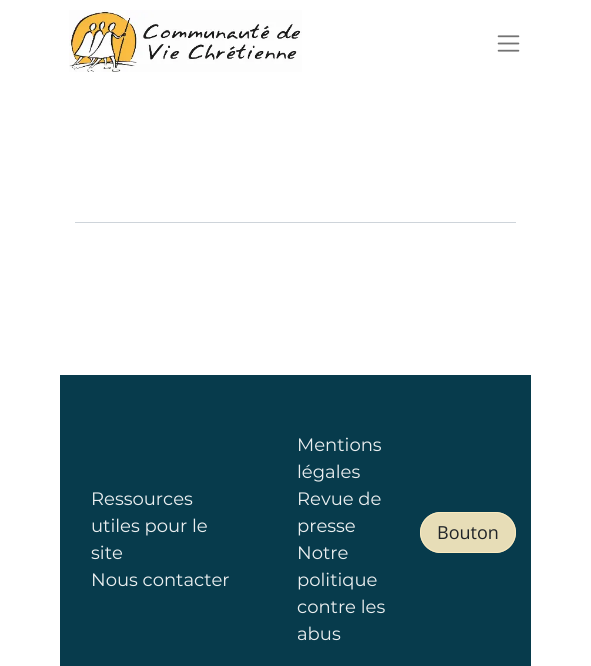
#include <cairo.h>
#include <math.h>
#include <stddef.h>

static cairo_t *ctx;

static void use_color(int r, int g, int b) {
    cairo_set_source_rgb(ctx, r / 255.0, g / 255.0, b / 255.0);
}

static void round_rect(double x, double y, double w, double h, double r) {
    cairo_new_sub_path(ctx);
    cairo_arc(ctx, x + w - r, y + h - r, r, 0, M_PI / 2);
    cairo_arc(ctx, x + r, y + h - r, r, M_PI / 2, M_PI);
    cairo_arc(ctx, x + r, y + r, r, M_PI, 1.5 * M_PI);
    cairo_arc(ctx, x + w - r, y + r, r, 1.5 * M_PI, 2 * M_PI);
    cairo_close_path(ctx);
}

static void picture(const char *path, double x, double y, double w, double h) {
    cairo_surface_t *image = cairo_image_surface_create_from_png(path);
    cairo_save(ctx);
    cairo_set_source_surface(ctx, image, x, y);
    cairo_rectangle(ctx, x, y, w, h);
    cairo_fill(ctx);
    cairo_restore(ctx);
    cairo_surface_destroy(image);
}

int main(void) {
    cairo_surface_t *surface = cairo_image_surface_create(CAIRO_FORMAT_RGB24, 591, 666);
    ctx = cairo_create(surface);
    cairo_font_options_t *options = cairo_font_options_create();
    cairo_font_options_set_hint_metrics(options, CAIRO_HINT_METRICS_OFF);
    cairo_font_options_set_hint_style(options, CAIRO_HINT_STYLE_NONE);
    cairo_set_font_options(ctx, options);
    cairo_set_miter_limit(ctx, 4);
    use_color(255, 255, 255);
    cairo_paint(ctx);
    picture("img1.png", 69, 10, 233, 62);
    picture("img2.png", 497, 35, 23, 17);
    use_color(206, 212, 218);
    cairo_rectangle(ctx, 75, 222, 441, 1);
    cairo_fill(ctx);
    use_color(7, 59, 76);
    cairo_rectangle(ctx, 60, 375, 471, 291);
    cairo_fill(ctx);
    cairo_select_font_face(ctx, "Montserrat", CAIRO_FONT_SLANT_NORMAL, CAIRO_FONT_WEIGHT_NORMAL);
    cairo_set_font_size(ctx, 18);
    use_color(235, 239, 240);
    cairo_move_to(ctx, 91, 505);
    cairo_show_text(ctx, "Ressources");
    cairo_move_to(ctx, 91, 532);
    cairo_show_text(ctx, "utiles pour le");
    cairo_move_to(ctx, 91, 559);
    cairo_show_text(ctx, "site");
    cairo_move_to(ctx, 91, 586);
    cairo_show_text(ctx, "Nous contacter");
    cairo_move_to(ctx, 297, 451);
    cairo_show_text(ctx, "Mentions");
    cairo_move_to(ctx, 297, 478);
    cairo_show_text(ctx, "légales");
    cairo_move_to(ctx, 297, 505);
    cairo_show_text(ctx, "Revue de");
    cairo_move_to(ctx, 297, 532);
    cairo_show_text(ctx, "presse");
    cairo_move_to(ctx, 297, 559);
    cairo_show_text(ctx, "Notre");
    cairo_move_to(ctx, 297, 586);
    cairo_show_text(ctx, "politique");
    cairo_move_to(ctx, 297, 613);
    cairo_show_text(ctx, "contre les");
    cairo_move_to(ctx, 297, 640);
    cairo_show_text(ctx, "abus");
    use_color(231, 221, 183);
    round_rect(420, 512, 96, 41, 20.5);
    cairo_fill(ctx);
    round_rect(420.5, 512.5, 95, 40, 20);
    cairo_set_source_rgba(ctx, 0.984, 0.922, 0.753, 0.92);
    cairo_set_line_width(ctx, 1);
    cairo_stroke(ctx);
    cairo_select_font_face(ctx, "Open Sans", CAIRO_FONT_SLANT_NORMAL, CAIRO_FONT_WEIGHT_NORMAL);
    use_color(33, 37, 41);
    cairo_move_to(ctx, 437, 539);
    cairo_show_text(ctx, "Bouton");
    cairo_surface_write_to_png(surface, "result.png");
    cairo_font_options_destroy(options);
    cairo_destroy(ctx);
    cairo_surface_destroy(surface);
    return 0;
}
